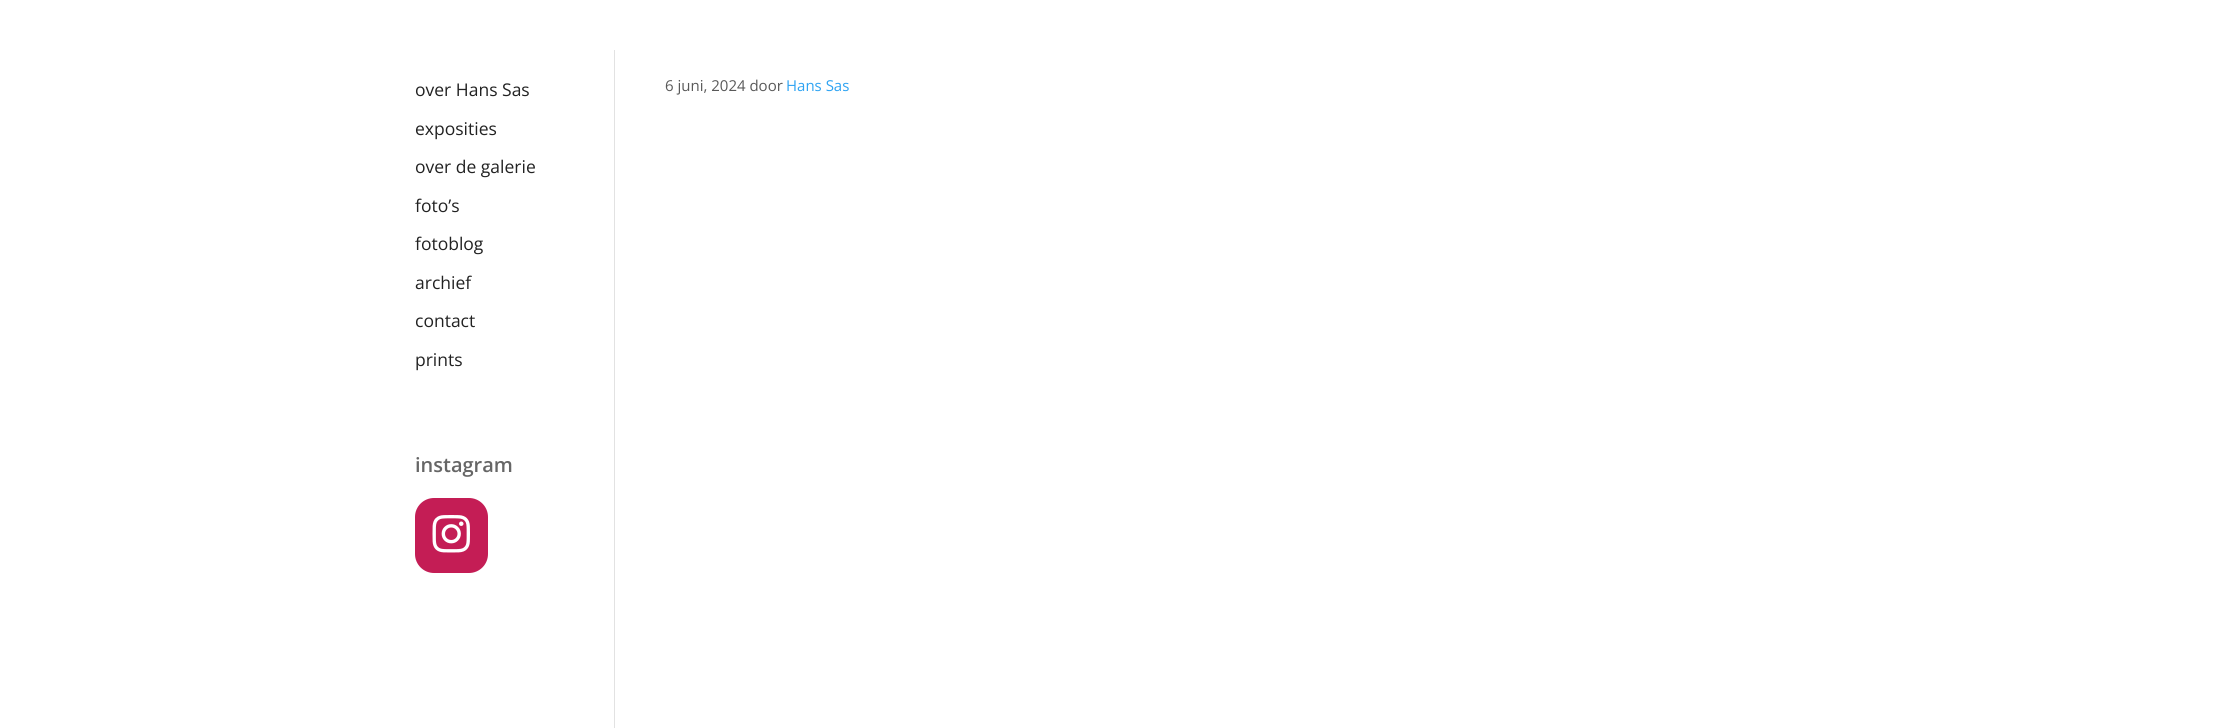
#include <cairo.h>
#include <math.h>
#include <stddef.h>

static cairo_t *ctx;

static void use_color(int r, int g, int b) {
    cairo_set_source_rgb(ctx, r / 255.0, g / 255.0, b / 255.0);
}

static void round_rect(double x, double y, double w, double h, double r) {
    cairo_new_sub_path(ctx);
    cairo_arc(ctx, x + w - r, y + h - r, r, 0, M_PI / 2);
    cairo_arc(ctx, x + r, y + h - r, r, M_PI / 2, M_PI);
    cairo_arc(ctx, x + r, y + r, r, M_PI, 1.5 * M_PI);
    cairo_arc(ctx, x + w - r, y + r, r, 1.5 * M_PI, 2 * M_PI);
    cairo_close_path(ctx);
}

static void picture(const char *path, double x, double y, double w, double h) {
    cairo_surface_t *image = cairo_image_surface_create_from_png(path);
    cairo_save(ctx);
    cairo_set_source_surface(ctx, image, x, y);
    cairo_rectangle(ctx, x, y, w, h);
    cairo_fill(ctx);
    cairo_restore(ctx);
    cairo_surface_destroy(image);
}

int main(void) {
    cairo_surface_t *surface = cairo_image_surface_create(CAIRO_FORMAT_RGB24, 2229, 728);
    ctx = cairo_create(surface);
    cairo_font_options_t *options = cairo_font_options_create();
    cairo_font_options_set_hint_metrics(options, CAIRO_HINT_METRICS_OFF);
    cairo_font_options_set_hint_style(options, CAIRO_HINT_STYLE_NONE);
    cairo_set_font_options(ctx, options);
    cairo_set_miter_limit(ctx, 4);
    use_color(255, 255, 255);
    cairo_paint(ctx);
    use_color(226, 226, 226);
    cairo_rectangle(ctx, 614, 50, 1, 678);
    cairo_fill(ctx);
    cairo_select_font_face(ctx, "Open Sans", CAIRO_FONT_SLANT_NORMAL, CAIRO_FONT_WEIGHT_NORMAL);
    cairo_set_font_size(ctx, 17.5);
    use_color(34, 34, 34);
    cairo_move_to(ctx, 415, 96);
    cairo_show_text(ctx, "over Hans Sas");
    cairo_move_to(ctx, 415, 135);
    cairo_show_text(ctx, "exposities");
    cairo_move_to(ctx, 415, 173);
    cairo_show_text(ctx, "over de galerie");
    cairo_move_to(ctx, 415, 212);
    cairo_show_text(ctx, "foto’s");
    cairo_move_to(ctx, 415, 250);
    cairo_show_text(ctx, "fotoblog");
    cairo_move_to(ctx, 415, 289);
    cairo_show_text(ctx, "archief");
    cairo_move_to(ctx, 415, 327);
    cairo_show_text(ctx, "contact");
    cairo_move_to(ctx, 415, 366);
    cairo_show_text(ctx, "prints");
    cairo_select_font_face(ctx, "Open Sans SemiBold", CAIRO_FONT_SLANT_NORMAL, CAIRO_FONT_WEIGHT_NORMAL);
    cairo_set_font_size(ctx, 20);
    use_color(102, 102, 102);
    cairo_move_to(ctx, 415, 472);
    cairo_show_text(ctx, "instagram");
    use_color(196, 29, 85);
    round_rect(415, 498, 73, 75, 19);
    cairo_fill(ctx);
    picture("img1.png", 432, 515, 38, 38);
    cairo_select_font_face(ctx, "Open Sans", CAIRO_FONT_SLANT_NORMAL, CAIRO_FONT_WEIGHT_NORMAL);
    cairo_set_font_size(ctx, 15);
    use_color(89, 89, 89);
    cairo_move_to(ctx, 665, 91);
    cairo_show_text(ctx, "6 juni, 2024 door");
    use_color(46, 163, 242);
    cairo_move_to(ctx, 786, 91);
    cairo_show_text(ctx, "Hans Sas");
    cairo_surface_write_to_png(surface, "result.png");
    cairo_font_options_destroy(options);
    cairo_destroy(ctx);
    cairo_surface_destroy(surface);
    return 0;
}
